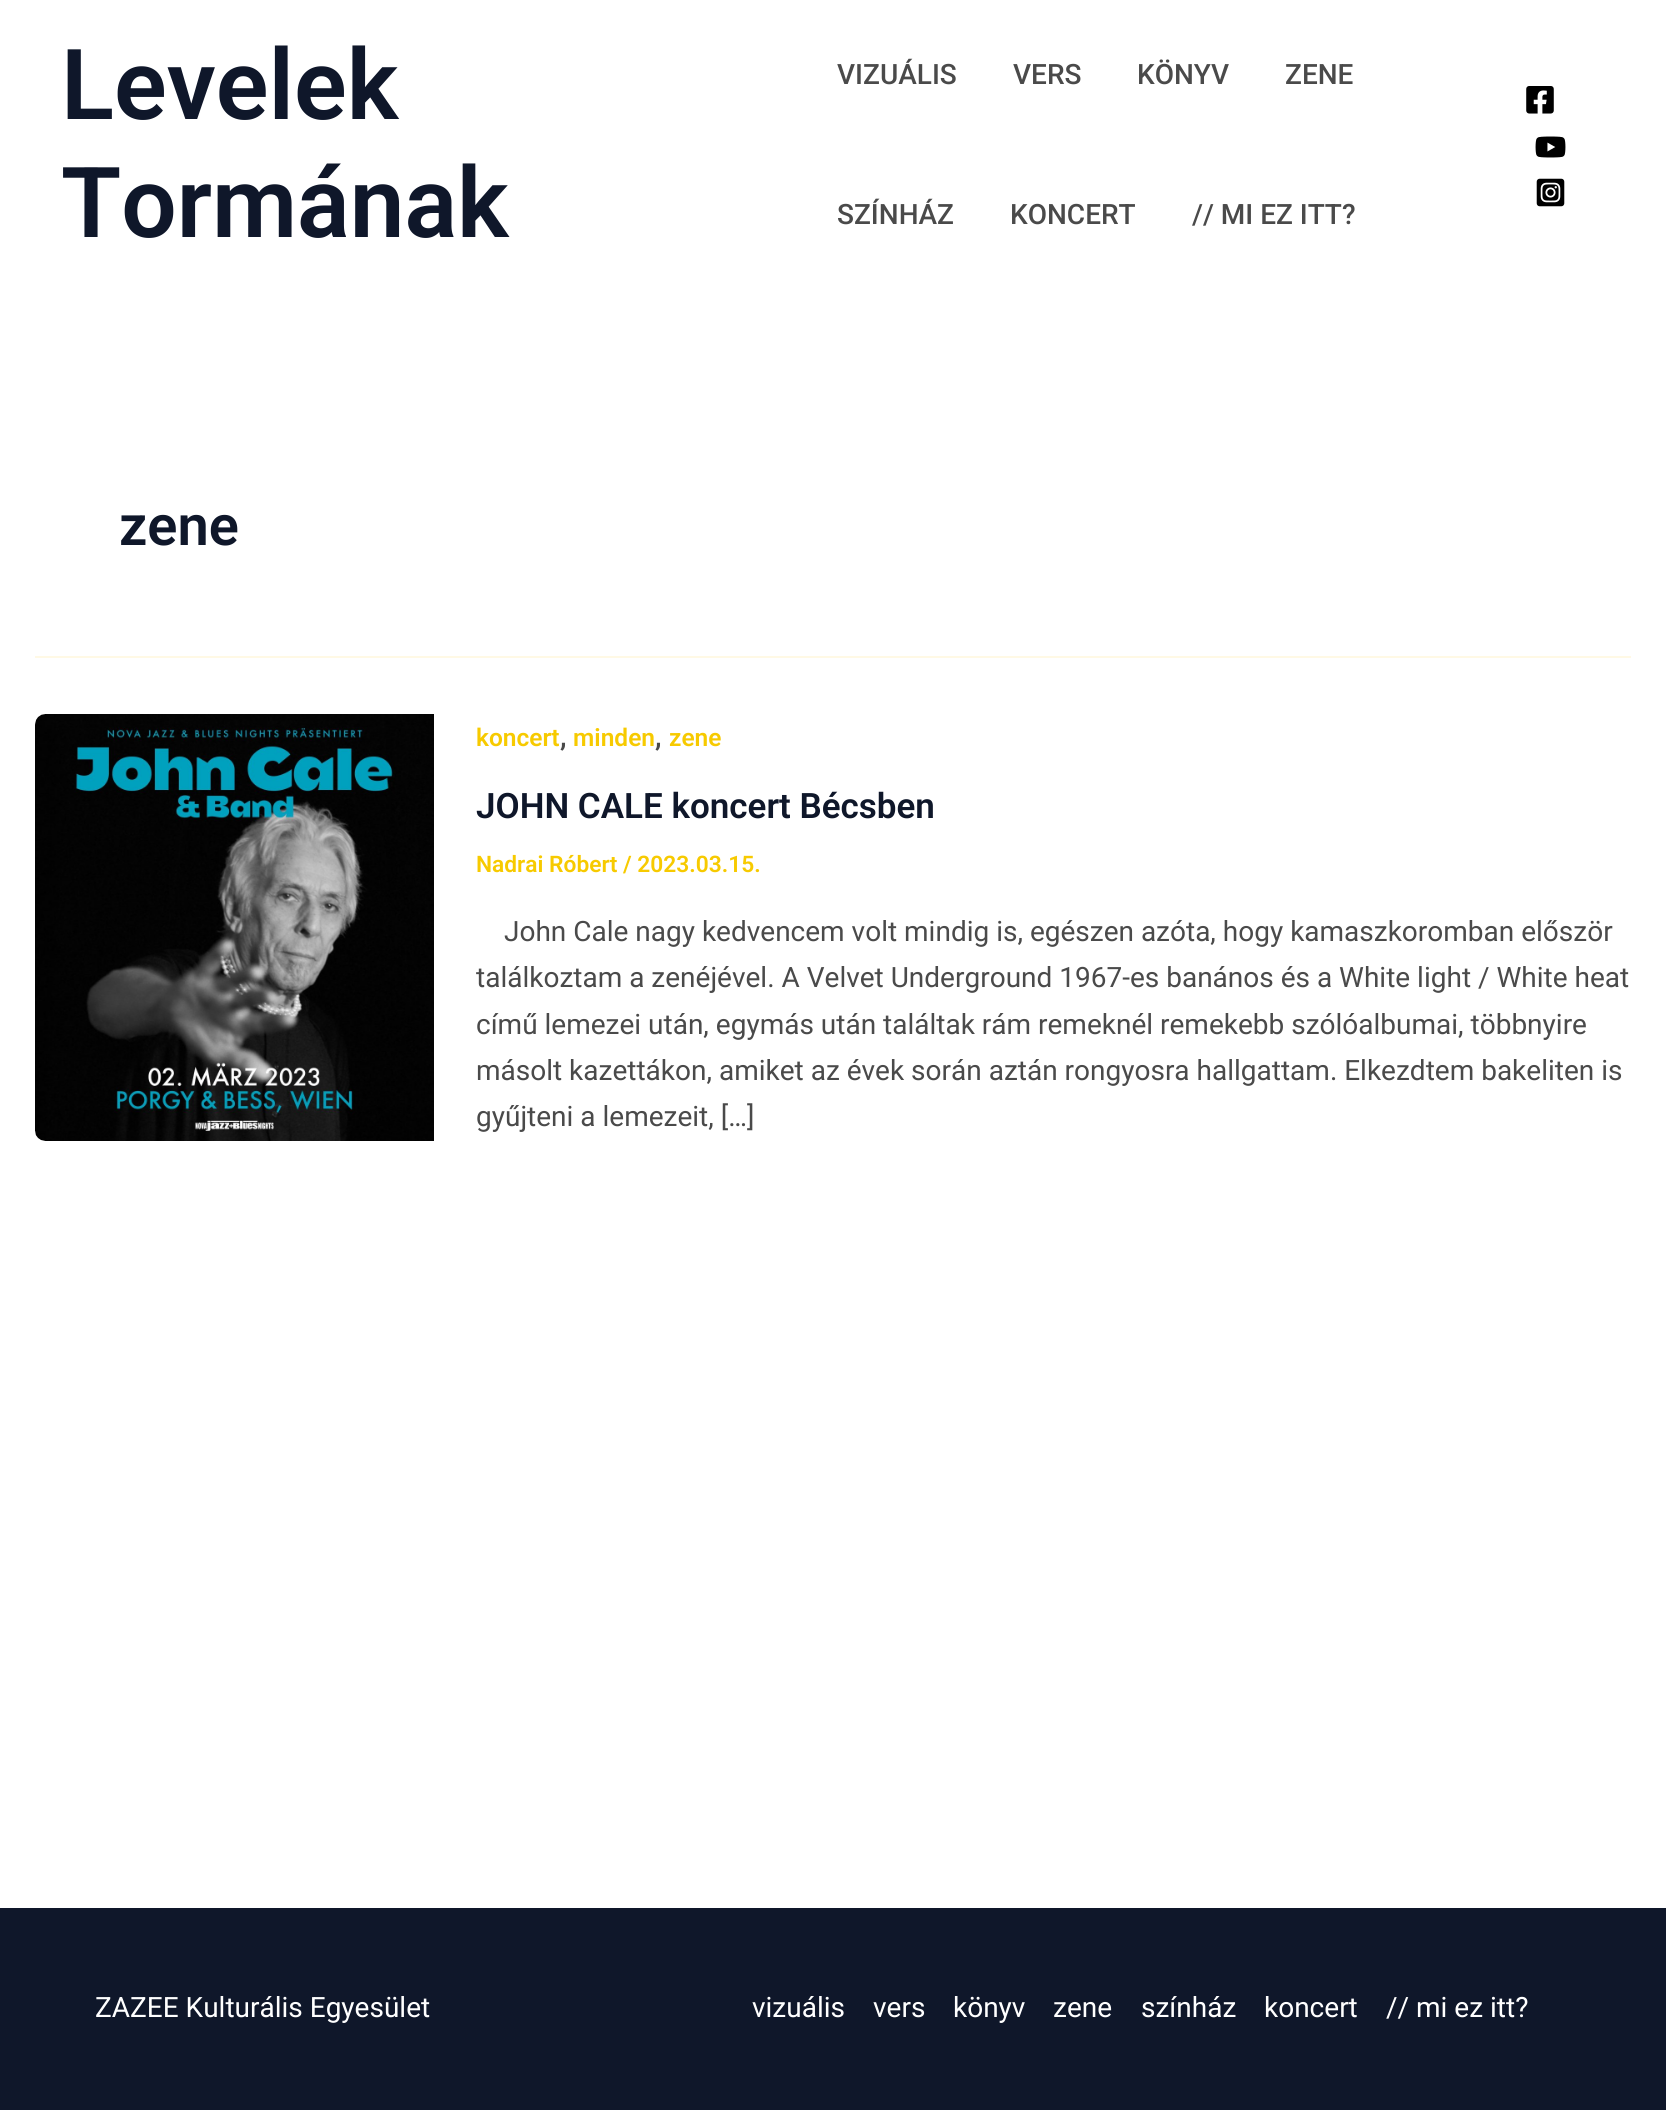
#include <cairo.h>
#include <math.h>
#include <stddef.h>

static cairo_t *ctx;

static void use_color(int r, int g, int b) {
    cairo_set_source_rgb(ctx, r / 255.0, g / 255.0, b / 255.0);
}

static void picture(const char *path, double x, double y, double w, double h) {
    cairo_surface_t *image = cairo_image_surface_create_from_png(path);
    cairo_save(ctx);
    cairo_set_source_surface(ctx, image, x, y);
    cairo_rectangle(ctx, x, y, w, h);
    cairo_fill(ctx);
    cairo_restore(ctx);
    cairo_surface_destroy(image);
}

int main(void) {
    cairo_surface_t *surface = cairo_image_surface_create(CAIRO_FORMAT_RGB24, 1666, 2110);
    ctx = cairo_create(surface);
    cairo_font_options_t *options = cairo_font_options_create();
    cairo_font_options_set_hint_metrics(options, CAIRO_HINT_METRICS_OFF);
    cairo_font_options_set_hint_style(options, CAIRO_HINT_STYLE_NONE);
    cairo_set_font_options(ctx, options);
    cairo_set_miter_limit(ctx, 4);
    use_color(255, 255, 255);
    cairo_paint(ctx);
    cairo_select_font_face(ctx, "Roboto SemiBold", CAIRO_FONT_SLANT_NORMAL, CAIRO_FONT_WEIGHT_NORMAL);
    cairo_set_font_size(ctx, 98);
    use_color(15, 23, 42);
    cairo_move_to(ctx, 61, 119);
    cairo_show_text(ctx, "Levelek");
    cairo_move_to(ctx, 61, 237);
    cairo_show_text(ctx, "Tormának");
    cairo_select_font_face(ctx, "Roboto Medium", CAIRO_FONT_SLANT_NORMAL, CAIRO_FONT_WEIGHT_NORMAL);
    cairo_set_font_size(ctx, 28);
    use_color(74, 74, 74);
    cairo_move_to(ctx, 837, 84);
    cairo_show_text(ctx, "VIZUÁLIS");
    cairo_move_to(ctx, 1013, 84);
    cairo_show_text(ctx, "VERS");
    cairo_move_to(ctx, 1137, 84);
    cairo_show_text(ctx, "KÖNYV");
    cairo_move_to(ctx, 1285, 84);
    cairo_show_text(ctx, "ZENE");
    cairo_move_to(ctx, 837, 224);
    cairo_show_text(ctx, "SZÍNHÁZ");
    cairo_move_to(ctx, 1010, 224);
    cairo_show_text(ctx, "KONCERT");
    cairo_move_to(ctx, 1192, 224);
    cairo_show_text(ctx, "// MI EZ ITT?");
    picture("img1.png", 1526, 86, 28, 28);
    picture("img2.png", 1535, 136, 31, 22);
    picture("img3.png", 1536, 178, 29, 29);
    use_color(255, 249, 229);
    cairo_rectangle(ctx, 35, 656, 1596, 2);
    cairo_fill(ctx);
    cairo_select_font_face(ctx, "Roboto SemiBold", CAIRO_FONT_SLANT_NORMAL, CAIRO_FONT_WEIGHT_NORMAL);
    cairo_set_font_size(ctx, 56);
    use_color(15, 23, 42);
    cairo_move_to(ctx, 119, 545);
    cairo_show_text(ctx, "zene");
    picture("img4.png", 35, 714, 399, 427);
    cairo_set_font_size(ctx, 24.5);
    use_color(247, 202, 0);
    cairo_move_to(ctx, 476, 746);
    cairo_show_text(ctx, "koncert");
    cairo_set_font_size(ctx, 28);
    use_color(74, 74, 74);
    cairo_move_to(ctx, 560, 746);
    cairo_show_text(ctx, ",");
    cairo_set_font_size(ctx, 24.5);
    use_color(247, 202, 0);
    cairo_move_to(ctx, 573, 746);
    cairo_show_text(ctx, "minden");
    cairo_set_font_size(ctx, 28);
    use_color(74, 74, 74);
    cairo_move_to(ctx, 655, 746);
    cairo_show_text(ctx, ",");
    cairo_set_font_size(ctx, 24.5);
    use_color(247, 202, 0);
    cairo_move_to(ctx, 669, 746);
    cairo_show_text(ctx, "zene");
    cairo_set_font_size(ctx, 35);
    use_color(15, 23, 42);
    cairo_move_to(ctx, 476, 818);
    cairo_show_text(ctx, "JOHN CALE koncert Bécsben");
    cairo_set_font_size(ctx, 22.75);
    use_color(247, 202, 0);
    cairo_move_to(ctx, 476, 872);
    cairo_show_text(ctx, "Nadrai Róbert / 2023.03.15.");
    cairo_select_font_face(ctx, "Roboto", CAIRO_FONT_SLANT_NORMAL, CAIRO_FONT_WEIGHT_NORMAL);
    cairo_set_font_size(ctx, 28);
    use_color(74, 74, 74);
    cairo_move_to(ctx, 504, 941);
    cairo_show_text(ctx, "John Cale nagy kedvencem volt mindig is, egészen azóta, hogy kamaszkoromban először");
    cairo_move_to(ctx, 476, 987);
    cairo_show_text(ctx, "találkoztam a zenéjével. A Velvet Underground 1967-es banános és a White light / White heat");
    cairo_move_to(ctx, 476, 1034);
    cairo_show_text(ctx, "című lemezei után, egymás után találtak rám remeknél remekebb szólóalbumai, többnyire");
    cairo_move_to(ctx, 476, 1080);
    cairo_show_text(ctx, "másolt kazettákon, amiket az évek során aztán rongyosra hallgattam. Elkezdtem bakeliten is");
    cairo_move_to(ctx, 476, 1126);
    cairo_show_text(ctx, "gyűjteni a lemezeit, […]");
    use_color(15, 23, 42);
    cairo_rectangle(ctx, 0, 1908, 1666, 202);
    cairo_fill(ctx);
    use_color(255, 255, 255);
    cairo_move_to(ctx, 95, 2017);
    cairo_show_text(ctx, "ZAZEE Kulturális Egyesület");
    cairo_move_to(ctx, 752, 2017);
    cairo_show_text(ctx, "vizuális");
    cairo_move_to(ctx, 873, 2017);
    cairo_show_text(ctx, "vers");
    cairo_move_to(ctx, 953, 2017);
    cairo_show_text(ctx, "könyv");
    cairo_move_to(ctx, 1053, 2017);
    cairo_show_text(ctx, "zene");
    cairo_move_to(ctx, 1141, 2017);
    cairo_show_text(ctx, "színház");
    cairo_move_to(ctx, 1264, 2017);
    cairo_show_text(ctx, "koncert");
    cairo_move_to(ctx, 1386, 2017);
    cairo_show_text(ctx, "// mi ez itt?");
    cairo_surface_write_to_png(surface, "result.png");
    cairo_font_options_destroy(options);
    cairo_destroy(ctx);
    cairo_surface_destroy(surface);
    return 0;
}
